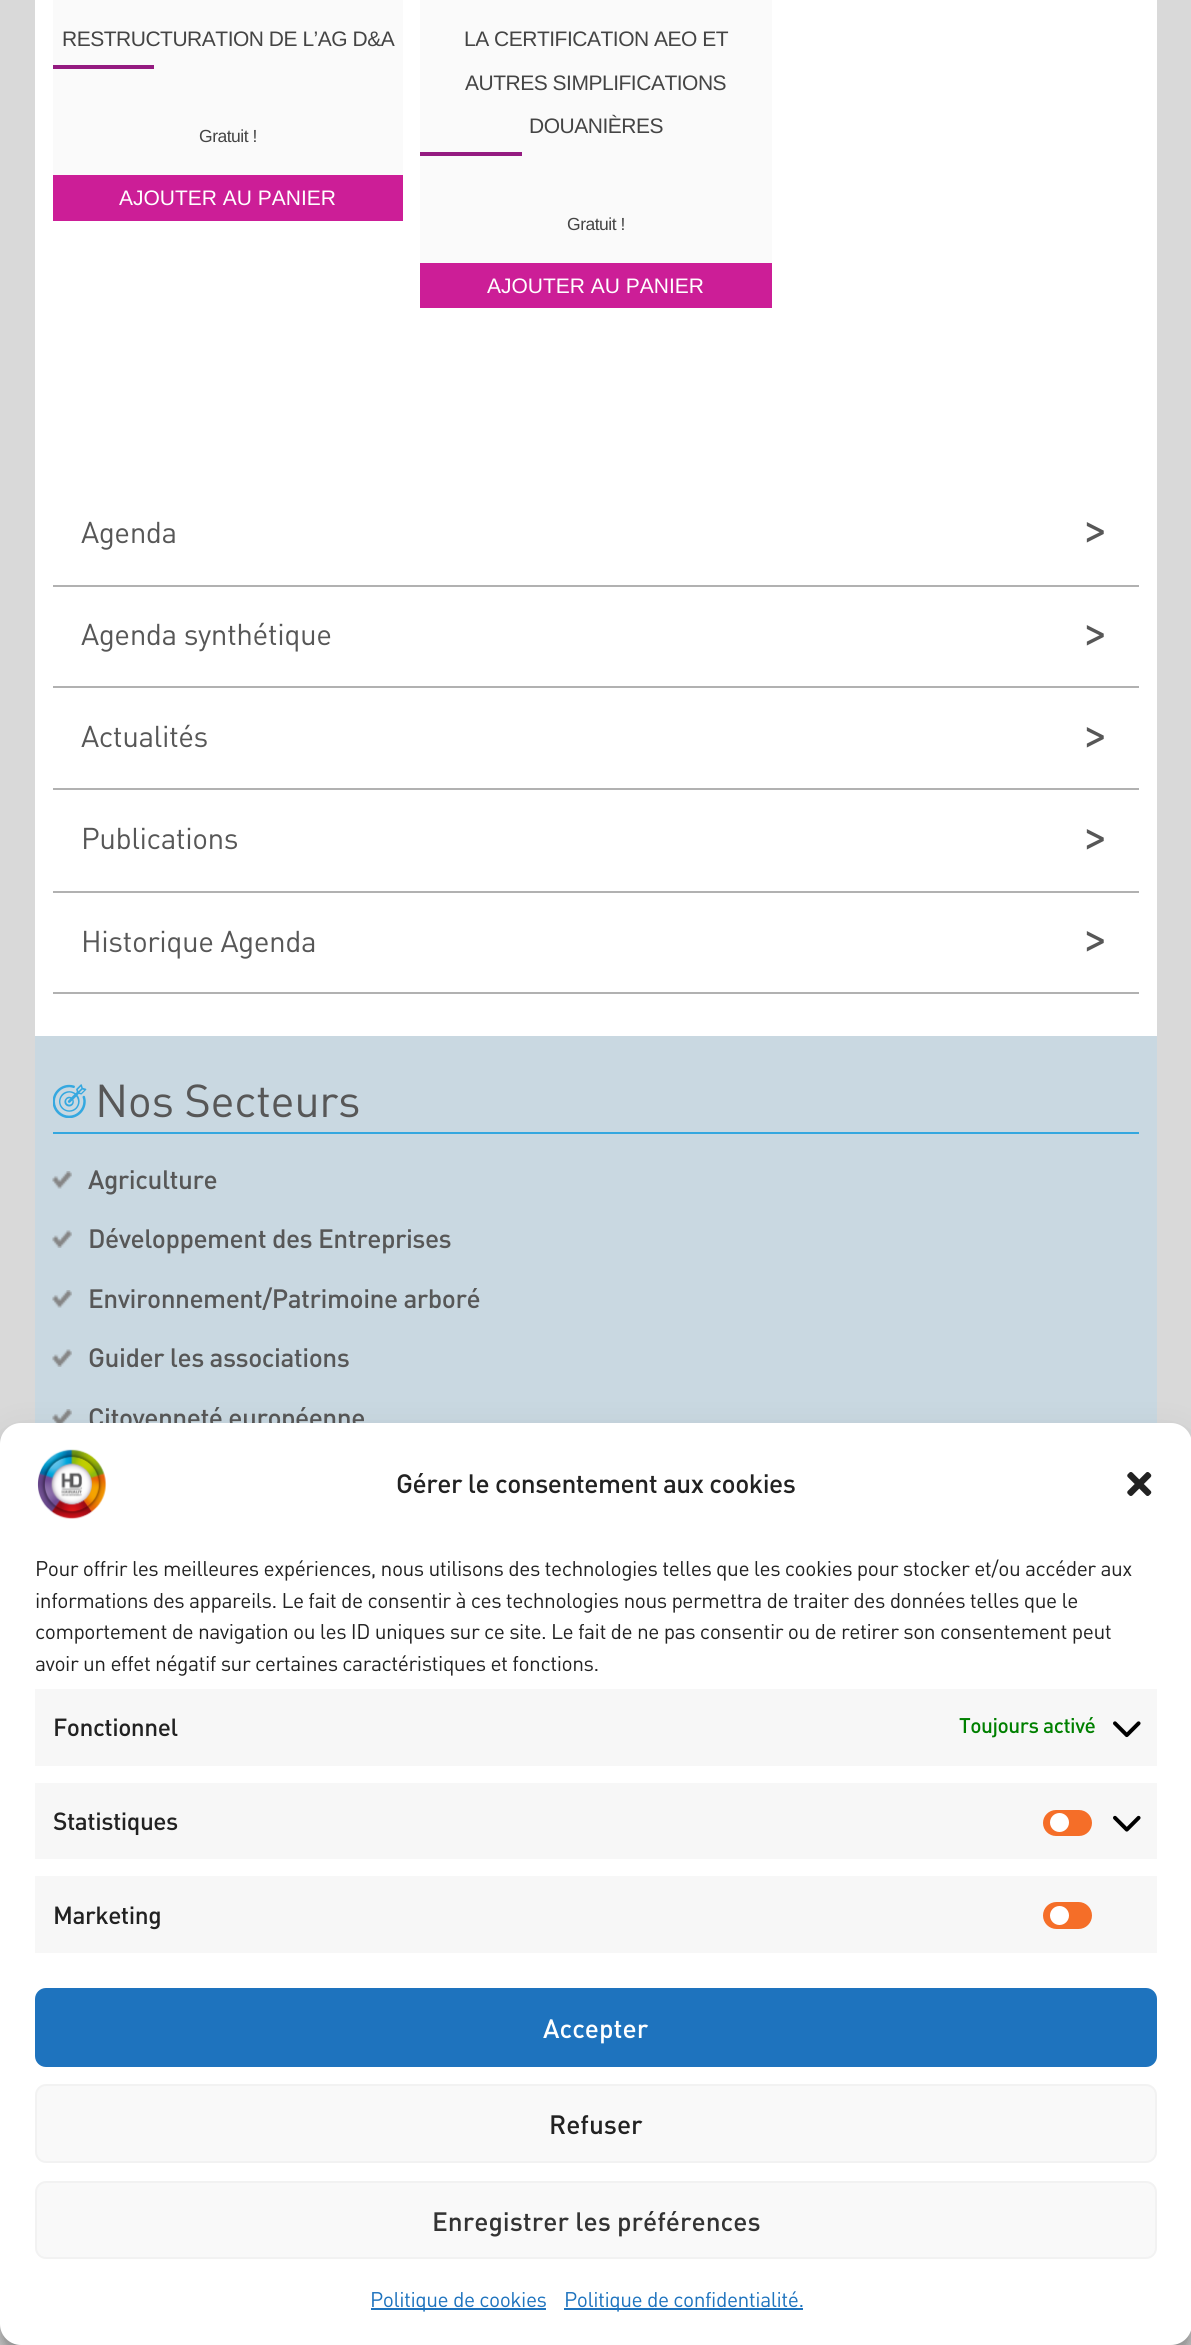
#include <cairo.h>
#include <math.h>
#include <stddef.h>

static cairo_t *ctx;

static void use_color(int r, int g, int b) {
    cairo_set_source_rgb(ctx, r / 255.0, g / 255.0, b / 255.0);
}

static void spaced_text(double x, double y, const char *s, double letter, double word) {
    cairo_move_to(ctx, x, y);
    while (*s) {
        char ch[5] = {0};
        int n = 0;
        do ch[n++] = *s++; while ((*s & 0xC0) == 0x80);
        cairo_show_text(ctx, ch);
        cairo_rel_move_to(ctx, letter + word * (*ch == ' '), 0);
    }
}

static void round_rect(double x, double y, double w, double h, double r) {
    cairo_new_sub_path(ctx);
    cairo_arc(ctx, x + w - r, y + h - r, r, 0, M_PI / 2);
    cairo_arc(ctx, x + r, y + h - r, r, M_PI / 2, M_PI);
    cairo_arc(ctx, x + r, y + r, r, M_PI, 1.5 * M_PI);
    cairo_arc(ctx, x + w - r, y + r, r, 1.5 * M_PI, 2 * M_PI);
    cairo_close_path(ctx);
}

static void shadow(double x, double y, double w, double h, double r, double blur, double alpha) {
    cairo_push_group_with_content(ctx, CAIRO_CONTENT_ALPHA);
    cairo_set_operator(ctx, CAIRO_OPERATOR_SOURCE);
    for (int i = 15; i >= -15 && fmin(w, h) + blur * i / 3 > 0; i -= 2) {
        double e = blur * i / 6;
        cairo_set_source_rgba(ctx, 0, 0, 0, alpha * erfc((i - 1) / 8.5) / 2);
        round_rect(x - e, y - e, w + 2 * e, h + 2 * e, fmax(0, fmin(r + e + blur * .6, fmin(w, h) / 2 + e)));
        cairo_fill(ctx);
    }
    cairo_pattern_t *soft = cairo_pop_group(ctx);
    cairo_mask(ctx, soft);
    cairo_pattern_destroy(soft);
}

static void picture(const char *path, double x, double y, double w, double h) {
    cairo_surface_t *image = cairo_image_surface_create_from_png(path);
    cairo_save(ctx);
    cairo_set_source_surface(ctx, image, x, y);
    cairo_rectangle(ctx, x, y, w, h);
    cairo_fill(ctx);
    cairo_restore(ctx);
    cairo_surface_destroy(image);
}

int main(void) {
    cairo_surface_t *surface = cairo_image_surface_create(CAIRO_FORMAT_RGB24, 1191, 2345);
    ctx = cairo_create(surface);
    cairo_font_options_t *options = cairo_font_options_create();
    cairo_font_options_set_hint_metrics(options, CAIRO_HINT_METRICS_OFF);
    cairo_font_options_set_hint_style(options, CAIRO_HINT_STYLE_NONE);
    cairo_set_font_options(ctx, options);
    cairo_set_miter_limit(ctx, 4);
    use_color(217, 217, 217);
    cairo_paint(ctx);
    use_color(255, 255, 255);
    cairo_rectangle(ctx, 35, 0, 1122, 1036);
    cairo_fill(ctx);
    use_color(250, 250, 250);
    cairo_rectangle(ctx, 53, 0, 350, 175);
    cairo_fill(ctx);
    cairo_select_font_face(ctx, "Liberation Sans", CAIRO_FONT_SLANT_NORMAL, CAIRO_FONT_WEIGHT_NORMAL);
    cairo_set_font_size(ctx, 21);
    use_color(68, 68, 68);
    spaced_text(62, 46, "RESTRUCTURATION DE L’AG D&A", -0.49, 0);
    use_color(148, 27, 128);
    cairo_rectangle(ctx, 53, 65, 101, 4);
    cairo_fill(ctx);
    cairo_set_font_size(ctx, 17.5);
    use_color(68, 68, 68);
    spaced_text(199, 142, "Gratuit !", -0.49, 0);
    use_color(204, 30, 151);
    cairo_rectangle(ctx, 53, 175, 350, 46);
    cairo_fill(ctx);
    cairo_set_font_size(ctx, 21);
    use_color(255, 255, 255);
    cairo_move_to(ctx, 119, 205);
    cairo_show_text(ctx, "AJOUTER AU PANIER");
    use_color(250, 250, 250);
    cairo_rectangle(ctx, 420, 0, 352, 263);
    cairo_fill(ctx);
    use_color(68, 68, 68);
    spaced_text(464, 46, "LA CERTIFICATION AEO ET", -0.49, 0);
    spaced_text(465, 90, "AUTRES SIMPLIFICATIONS", -0.49, 0);
    spaced_text(529, 133, "DOUANIÈRES", -0.49, 0);
    use_color(148, 27, 128);
    cairo_rectangle(ctx, 420, 152, 102, 4);
    cairo_fill(ctx);
    cairo_set_font_size(ctx, 17.5);
    use_color(68, 68, 68);
    spaced_text(567, 230, "Gratuit !", -0.49, 0);
    use_color(204, 30, 151);
    cairo_rectangle(ctx, 420, 263, 352, 45);
    cairo_fill(ctx);
    cairo_set_font_size(ctx, 21);
    use_color(255, 255, 255);
    cairo_move_to(ctx, 487, 293);
    cairo_show_text(ctx, "AJOUTER AU PANIER");
    use_color(177, 177, 177);
    cairo_rectangle(ctx, 53, 585, 1086, 2);
    cairo_fill(ctx);
    cairo_select_font_face(ctx, "DIN", CAIRO_FONT_SLANT_NORMAL, CAIRO_FONT_WEIGHT_NORMAL);
    cairo_set_font_size(ctx, 29.75);
    use_color(87, 87, 87);
    spaced_text(81, 543, "Agenda", -0.49, 0);
    cairo_set_font_size(ctx, 51);
    spaced_text(1082, 546, ">", -0.49, 0);
    use_color(177, 177, 177);
    cairo_rectangle(ctx, 53, 686, 1086, 2);
    cairo_fill(ctx);
    cairo_set_font_size(ctx, 29.75);
    use_color(87, 87, 87);
    spaced_text(81, 645, "Agenda synthétique", -0.49, 0);
    cairo_set_font_size(ctx, 51);
    spaced_text(1082, 649, ">", -0.49, 0);
    use_color(177, 177, 177);
    cairo_rectangle(ctx, 53, 788, 1086, 2);
    cairo_fill(ctx);
    cairo_set_font_size(ctx, 29.75);
    use_color(87, 87, 87);
    spaced_text(81, 747, "Actualités", -0.49, 0);
    cairo_set_font_size(ctx, 51);
    spaced_text(1082, 751, ">", -0.49, 0);
    use_color(177, 177, 177);
    cairo_rectangle(ctx, 53, 891, 1086, 2);
    cairo_fill(ctx);
    cairo_set_font_size(ctx, 29.75);
    use_color(87, 87, 87);
    spaced_text(81, 849, "Publications", -0.49, 0);
    cairo_set_font_size(ctx, 51);
    spaced_text(1082, 853, ">", -0.49, 0);
    use_color(177, 177, 177);
    cairo_rectangle(ctx, 53, 992, 1086, 2);
    cairo_fill(ctx);
    cairo_set_font_size(ctx, 29.75);
    use_color(87, 87, 87);
    spaced_text(81, 952, "Historique Agenda", -0.49, 0);
    cairo_set_font_size(ctx, 51);
    spaced_text(1082, 955, ">", -0.49, 0);
    use_color(201, 216, 225);
    cairo_rectangle(ctx, 35, 1036, 1122, 387);
    cairo_fill(ctx);
    use_color(52, 167, 223);
    cairo_rectangle(ctx, 53, 1132, 1086, 2);
    cairo_fill(ctx);
    picture("img1.png", 53, 1084, 34, 34);
    cairo_set_font_size(ctx, 45.5);
    use_color(87, 87, 87);
    spaced_text(95, 1117, "Nos Secteurs", -0.5, 0);
    picture("img2.png", 52, 1171, 20, 18);
    cairo_select_font_face(ctx, "DIN Medium", CAIRO_FONT_SLANT_NORMAL, CAIRO_FONT_WEIGHT_NORMAL);
    cairo_set_font_size(ctx, 26.25);
    spaced_text(88, 1189, "Agriculture", -0.5, 0);
    picture("img3.png", 52, 1230, 20, 18);
    spaced_text(88, 1248, "Développement des Entreprises", -0.5, 0);
    picture("img2.png", 52, 1290, 20, 18);
    spaced_text(88, 1308, "Environnement/Patrimoine arboré", -0.5, 0);
    picture("img3.png", 52, 1349, 20, 18);
    spaced_text(88, 1367, "Guider les associations", -0.5, 0);
    picture("img4.png", 52, 1409, 20, 14);
    spaced_text(88, 1427, "Citoyenneté européenne", -0.5, 0);
    use_color(0, 0, 0);
    shadow(0, 1433, 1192, 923, 21, 5, 0.23);
    shadow(0, 1440, 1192, 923, 21, 17.5, 0.19);
    use_color(255, 255, 255);
    round_rect(0, 1423, 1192, 922, 21);
    cairo_fill(ctx);
    picture("img5.png", 37, 1449, 70, 70);
    use_color(34, 34, 34);
    spaced_text(396, 1493, "Gérer le consentement aux cookies", -0.49, 0);
    picture("img6.png", 1127, 1472, 25, 24);
    cairo_select_font_face(ctx, "DIN", CAIRO_FONT_SLANT_NORMAL, CAIRO_FONT_WEIGHT_NORMAL);
    cairo_set_font_size(ctx, 21);
    spaced_text(35, 1576, "Pour offrir les meilleures expériences, nous utilisons des technologies telles que les cookies pour stocker et/ou accéder aux", -0.49, 0);
    spaced_text(35, 1608, "informations des appareils. Le fait de consentir à ces technologies nous permettra de traiter des données telles que le", -0.49, 0);
    spaced_text(35, 1639, "comportement de navigation ou les ID uniques sur ce site. Le fait de ne pas consentir ou de retirer son consentement peut", -0.49, 0);
    spaced_text(35, 1671, "avoir un effet négatif sur certaines caractéristiques et fonctions.", -0.49, 0);
    use_color(247, 247, 247);
    cairo_rectangle(ctx, 35, 1689, 1122, 77);
    cairo_fill(ctx);
    cairo_select_font_face(ctx, "DIN Medium", CAIRO_FONT_SLANT_NORMAL, CAIRO_FONT_WEIGHT_NORMAL);
    cairo_set_font_size(ctx, 24.5);
    use_color(34, 34, 34);
    spaced_text(53, 1736, "Fonctionnel", -0.49, 0);
    cairo_set_font_size(ctx, 21);
    use_color(0, 128, 0);
    spaced_text(959, 1733, "Toujours activé", -0.49, 0);
    picture("img7.png", 1113, 1721, 28, 17);
    use_color(247, 247, 247);
    cairo_rectangle(ctx, 35, 1783, 1122, 76);
    cairo_fill(ctx);
    cairo_set_font_size(ctx, 24.5);
    use_color(34, 34, 34);
    spaced_text(53, 1830, "Statistiques", -0.49, 0);
    use_color(245, 110, 40);
    round_rect(1043, 1810, 49, 26, 13);
    cairo_fill(ctx);
    use_color(255, 255, 255);
    cairo_arc(ctx, 1059.5, 1822.5, 9.5, 0, 2 * M_PI);
    cairo_fill(ctx);
    picture("img8.png", 1113, 1815, 28, 17);
    use_color(247, 247, 247);
    cairo_rectangle(ctx, 35, 1876, 1122, 77);
    cairo_fill(ctx);
    use_color(34, 34, 34);
    spaced_text(53, 1924, "Marketing", -0.49, 0);
    use_color(245, 110, 40);
    round_rect(1043, 1902, 49, 27, 13.5);
    cairo_fill(ctx);
    use_color(255, 255, 255);
    cairo_arc(ctx, 1059.5, 1915.5, 9.5, 0, 2 * M_PI);
    cairo_fill(ctx);
    use_color(30, 115, 190);
    round_rect(36, 1989, 1120, 77, 10);
    cairo_fill_preserve(ctx);
    cairo_stroke(ctx);
    cairo_set_font_size(ctx, 26.25);
    use_color(255, 255, 255);
    cairo_move_to(ctx, 543, 2038);
    cairo_show_text(ctx, "Accepter");
    use_color(249, 249, 249);
    round_rect(36, 2085, 1120, 77, 10);
    cairo_fill_preserve(ctx);
    use_color(242, 242, 242);
    cairo_stroke(ctx);
    use_color(34, 34, 34);
    cairo_move_to(ctx, 549, 2134);
    cairo_show_text(ctx, "Refuser");
    use_color(249, 249, 249);
    round_rect(36, 2182, 1120, 76, 10);
    cairo_fill_preserve(ctx);
    use_color(242, 242, 242);
    cairo_stroke(ctx);
    use_color(51, 51, 51);
    cairo_move_to(ctx, 432, 2231);
    cairo_show_text(ctx, "Enregistrer les préférences");
    use_color(30, 115, 190);
    cairo_rectangle(ctx, 371, 2308, 175, 2);
    cairo_fill(ctx);
    cairo_select_font_face(ctx, "DIN", CAIRO_FONT_SLANT_NORMAL, CAIRO_FONT_WEIGHT_NORMAL);
    cairo_set_font_size(ctx, 21);
    spaced_text(370, 2307, "Politique de cookies", -0.49, 0);
    cairo_rectangle(ctx, 564, 2308, 239, 2);
    cairo_fill(ctx);
    spaced_text(564, 2307, "Politique de confidentialité.", -0.49, 0);
    cairo_surface_write_to_png(surface, "result.png");
    cairo_font_options_destroy(options);
    cairo_destroy(ctx);
    cairo_surface_destroy(surface);
    return 0;
}
